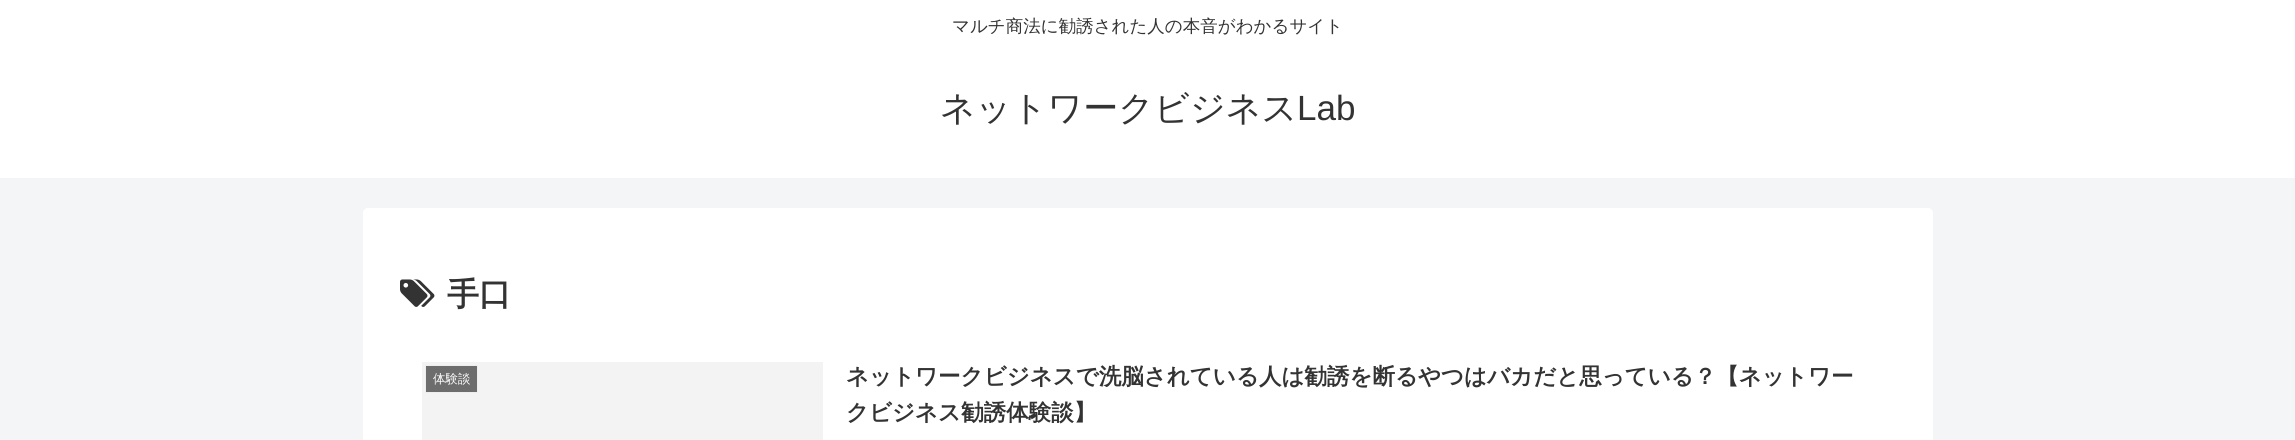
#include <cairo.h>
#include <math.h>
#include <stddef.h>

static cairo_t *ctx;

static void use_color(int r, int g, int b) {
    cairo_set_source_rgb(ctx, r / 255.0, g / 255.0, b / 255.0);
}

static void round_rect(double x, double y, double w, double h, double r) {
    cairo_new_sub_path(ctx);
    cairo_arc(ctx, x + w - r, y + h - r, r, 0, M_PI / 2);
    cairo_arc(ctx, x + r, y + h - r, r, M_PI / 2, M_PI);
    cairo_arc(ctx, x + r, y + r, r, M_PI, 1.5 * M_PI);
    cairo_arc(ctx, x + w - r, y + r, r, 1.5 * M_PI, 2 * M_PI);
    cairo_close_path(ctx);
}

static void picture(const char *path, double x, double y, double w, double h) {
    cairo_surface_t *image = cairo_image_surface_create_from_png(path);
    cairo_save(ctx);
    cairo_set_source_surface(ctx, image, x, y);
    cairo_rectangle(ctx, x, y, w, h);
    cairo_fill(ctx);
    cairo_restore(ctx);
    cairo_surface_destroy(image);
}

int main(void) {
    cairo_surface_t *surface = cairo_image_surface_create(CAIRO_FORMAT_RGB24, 2295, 440);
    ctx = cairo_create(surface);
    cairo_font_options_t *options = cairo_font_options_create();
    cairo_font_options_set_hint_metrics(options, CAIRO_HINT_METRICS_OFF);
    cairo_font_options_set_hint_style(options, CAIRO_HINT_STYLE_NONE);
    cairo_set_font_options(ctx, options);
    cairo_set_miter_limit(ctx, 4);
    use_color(244, 245, 247);
    cairo_paint(ctx);
    use_color(255, 255, 255);
    cairo_rectangle(ctx, 0, 0, 2295, 178);
    cairo_fill(ctx);
    cairo_select_font_face(ctx, "WenQuanYi Zen Hei Medium", CAIRO_FONT_SLANT_NORMAL, CAIRO_FONT_WEIGHT_NORMAL);
    cairo_set_font_size(ctx, 17.5);
    use_color(51, 51, 51);
    cairo_move_to(ctx, 952, 32);
    cairo_show_text(ctx, "マルチ商法に勧誘された人の本音がわかるサイト");
    cairo_set_font_size(ctx, 35);
    cairo_move_to(ctx, 940, 120);
    cairo_show_text(ctx, "ネットワークビジネス");
    cairo_select_font_face(ctx, "Liberation Sans", CAIRO_FONT_SLANT_NORMAL, CAIRO_FONT_WEIGHT_NORMAL);
    cairo_move_to(ctx, 1297, 120);
    cairo_show_text(ctx, "Lab");
    use_color(255, 255, 255);
    round_rect(363, 208, 1570, 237, 5);
    cairo_fill(ctx);
    picture("img1.png", 400, 279, 35, 28);
    cairo_select_font_face(ctx, "WenQuanYi Zen Hei", CAIRO_FONT_SLANT_NORMAL, CAIRO_FONT_WEIGHT_BOLD);
    cairo_set_font_size(ctx, 32);
    use_color(51, 51, 51);
    cairo_move_to(ctx, 447, 305);
    cairo_show_text(ctx, "手口");
    use_color(243, 243, 243);
    cairo_rectangle(ctx, 422, 362, 401, 78);
    cairo_fill(ctx);
    use_color(109, 109, 109);
    cairo_rectangle(ctx, 425.5, 365.5, 52, 27);
    cairo_fill_preserve(ctx);
    use_color(238, 238, 238);
    cairo_set_line_width(ctx, 1);
    cairo_stroke(ctx);
    cairo_select_font_face(ctx, "WenQuanYi Zen Hei Medium", CAIRO_FONT_SLANT_NORMAL, CAIRO_FONT_WEIGHT_NORMAL);
    cairo_set_font_size(ctx, 12.5);
    use_color(255, 255, 255);
    cairo_move_to(ctx, 433, 383);
    cairo_show_text(ctx, "体験談");
    cairo_select_font_face(ctx, "WenQuanYi Zen Hei", CAIRO_FONT_SLANT_NORMAL, CAIRO_FONT_WEIGHT_BOLD);
    cairo_set_font_size(ctx, 22.5);
    use_color(51, 51, 51);
    cairo_move_to(ctx, 846, 384);
    cairo_show_text(ctx, "ネットワークビジネスで洗脳されている人は勧誘を断るやつはバカだと思っている？【ネットワー");
    cairo_move_to(ctx, 846, 420);
    cairo_show_text(ctx, "クビジネス勧誘体験談】");
    cairo_surface_write_to_png(surface, "result.png");
    cairo_font_options_destroy(options);
    cairo_destroy(ctx);
    cairo_surface_destroy(surface);
    return 0;
}
